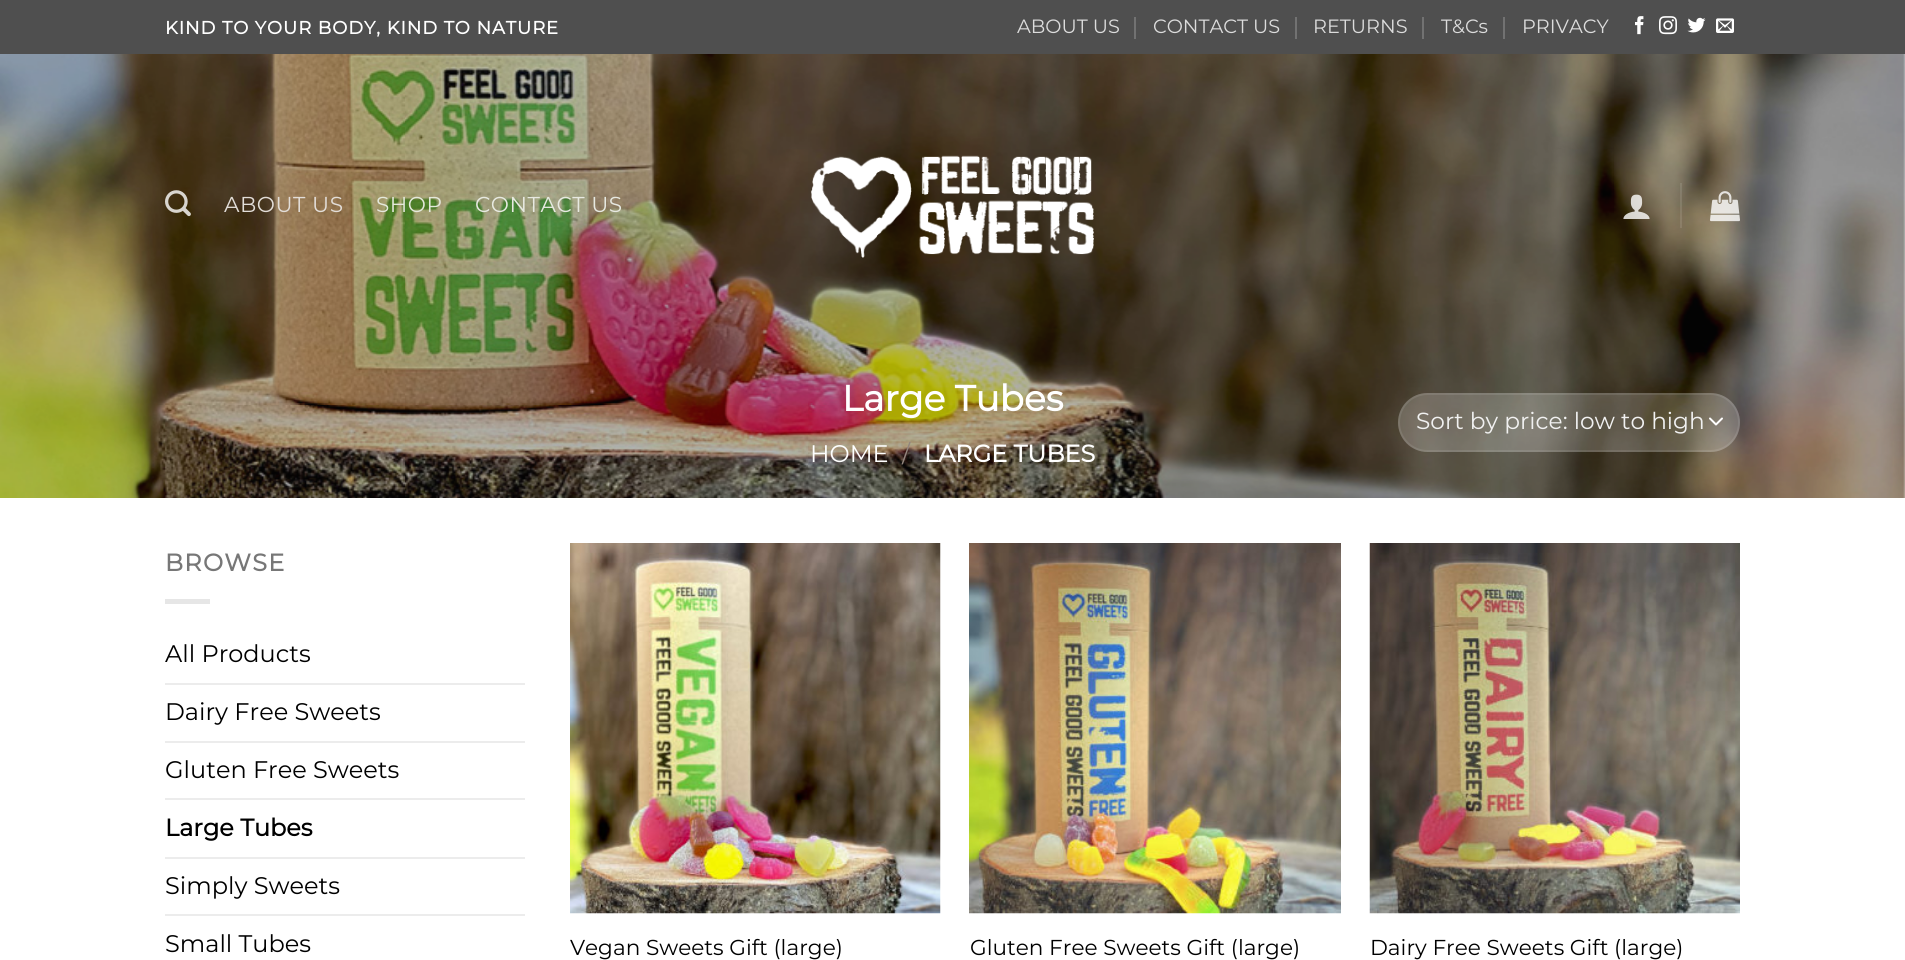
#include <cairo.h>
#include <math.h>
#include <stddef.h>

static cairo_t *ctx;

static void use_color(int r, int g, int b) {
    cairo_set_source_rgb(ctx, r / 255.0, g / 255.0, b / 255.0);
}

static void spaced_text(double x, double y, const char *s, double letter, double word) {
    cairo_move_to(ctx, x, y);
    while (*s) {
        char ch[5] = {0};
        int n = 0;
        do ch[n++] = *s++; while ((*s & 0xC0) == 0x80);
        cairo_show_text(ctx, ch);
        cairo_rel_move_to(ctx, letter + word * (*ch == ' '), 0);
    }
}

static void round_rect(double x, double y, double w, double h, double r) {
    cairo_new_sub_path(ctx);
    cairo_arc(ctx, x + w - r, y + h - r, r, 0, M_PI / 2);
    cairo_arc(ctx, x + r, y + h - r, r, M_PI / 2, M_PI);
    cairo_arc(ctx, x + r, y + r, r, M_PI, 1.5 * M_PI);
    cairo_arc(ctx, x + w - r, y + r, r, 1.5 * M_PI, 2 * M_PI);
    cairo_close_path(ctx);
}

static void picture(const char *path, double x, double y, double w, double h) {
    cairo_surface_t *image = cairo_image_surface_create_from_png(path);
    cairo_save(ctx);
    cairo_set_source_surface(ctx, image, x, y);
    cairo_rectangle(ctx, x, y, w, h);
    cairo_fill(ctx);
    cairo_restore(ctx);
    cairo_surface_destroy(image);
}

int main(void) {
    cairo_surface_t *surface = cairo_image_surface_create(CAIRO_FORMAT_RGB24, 1905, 960);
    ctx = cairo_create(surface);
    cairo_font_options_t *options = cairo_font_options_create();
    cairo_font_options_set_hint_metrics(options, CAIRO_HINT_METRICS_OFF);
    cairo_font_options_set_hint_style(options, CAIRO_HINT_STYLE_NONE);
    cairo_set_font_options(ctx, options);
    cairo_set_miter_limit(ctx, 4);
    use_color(255, 255, 255);
    cairo_paint(ctx);
    use_color(79, 79, 79);
    cairo_rectangle(ctx, 0, 0, 1905, 54);
    cairo_fill(ctx);
    cairo_select_font_face(ctx, "Montserrat", CAIRO_FONT_SLANT_NORMAL, CAIRO_FONT_WEIGHT_BOLD);
    cairo_set_font_size(ctx, 18);
    use_color(255, 255, 255);
    spaced_text(165, 34, "KIND TO YOUR BODY, KIND TO NATURE", 0.9, 0);
    cairo_select_font_face(ctx, "Montserrat Thin", CAIRO_FONT_SLANT_NORMAL, CAIRO_FONT_WEIGHT_NORMAL);
    cairo_set_font_size(ctx, 19.25);
    use_color(220, 220, 220);
    cairo_move_to(ctx, 1017, 33);
    cairo_show_text(ctx, "ABOUT US");
    use_color(114, 114, 114);
    cairo_rectangle(ctx, 1134, 17, 2, 22);
    cairo_fill(ctx);
    use_color(220, 220, 220);
    cairo_move_to(ctx, 1153, 33);
    cairo_show_text(ctx, "CONTACT US");
    use_color(114, 114, 114);
    cairo_rectangle(ctx, 1295, 17, 2, 22);
    cairo_fill(ctx);
    use_color(220, 220, 220);
    cairo_move_to(ctx, 1313, 33);
    cairo_show_text(ctx, "RETURNS");
    use_color(114, 114, 114);
    cairo_rectangle(ctx, 1422, 17, 2, 22);
    cairo_fill(ctx);
    use_color(220, 220, 220);
    cairo_move_to(ctx, 1441, 33);
    cairo_show_text(ctx, "T&Cs");
    use_color(114, 114, 114);
    cairo_rectangle(ctx, 1503, 17, 2, 22);
    cairo_fill(ctx);
    use_color(220, 220, 220);
    cairo_move_to(ctx, 1522, 33);
    cairo_show_text(ctx, "PRIVACY");
    picture("img1.png", 1635, 16, 9, 19);
    picture("img2.png", 1659, 16, 18, 19);
    picture("img3.png", 1687, 17, 19, 16);
    picture("img4.png", 1716, 18, 18, 15);
    picture("img9.png", 0, 54, 1905, 444);
    picture("img5.png", 165, 190, 26, 27);
    cairo_set_font_size(ctx, 21.6);
    use_color(226, 221, 216);
    spaced_text(224, 212, "ABOUT US", 0.5, 0);
    use_color(228, 232, 219);
    spaced_text(376, 212, "SHOP", 0.5, 0);
    use_color(231, 233, 225);
    spaced_text(475, 212, "CONTACT US", 0.5, 0);
    picture("img6.png", 811, 155, 283, 103);
    picture("img7.png", 1623, 194, 27, 25);
    cairo_set_source_rgba(ctx, 1, 1, 1, 0.1);
    cairo_rectangle(ctx, 1680, 183, 2, 45);
    cairo_fill(ctx);
    picture("img8.png", 1710, 191, 30, 31);
    cairo_select_font_face(ctx, "Montserrat", CAIRO_FONT_SLANT_NORMAL, CAIRO_FONT_WEIGHT_BOLD);
    cairo_set_font_size(ctx, 36);
    use_color(255, 255, 255);
    cairo_move_to(ctx, 842, 411);
    cairo_show_text(ctx, "Large Tubes");
    cairo_select_font_face(ctx, "Montserrat Thin", CAIRO_FONT_SLANT_NORMAL, CAIRO_FONT_WEIGHT_NORMAL);
    cairo_set_font_size(ctx, 24);
    cairo_move_to(ctx, 810, 462);
    cairo_show_text(ctx, "HOME");
    use_color(146, 133, 125);
    cairo_move_to(ctx, 902, 462);
    cairo_show_text(ctx, "/");
    cairo_select_font_face(ctx, "Montserrat", CAIRO_FONT_SLANT_NORMAL, CAIRO_FONT_WEIGHT_BOLD);
    use_color(255, 255, 255);
    cairo_move_to(ctx, 924, 462);
    cairo_show_text(ctx, "LARGE TUBES");
    cairo_set_source_rgba(ctx, 1, 1, 1, 0.2);
    round_rect(1398, 393, 342, 59, 29.5);
    cairo_fill(ctx);
    cairo_new_path(ctx);
    cairo_move_to(ctx, 1710, 418.5);
    cairo_line_to(ctx, 1716, 424.5);
    cairo_line_to(ctx, 1722, 418.5);
    use_color(255, 255, 255);
    cairo_set_line_cap(ctx, CAIRO_LINE_CAP_ROUND);
    cairo_set_line_join(ctx, CAIRO_LINE_JOIN_ROUND);
    cairo_stroke(ctx);
    round_rect(1399, 394, 340, 57, 28.5);
    cairo_set_source_rgba(ctx, 1, 1, 1, 0.09);
    cairo_set_line_cap(ctx, CAIRO_LINE_CAP_BUTT);
    cairo_set_line_join(ctx, CAIRO_LINE_JOIN_MITER);
    cairo_stroke(ctx);
    cairo_select_font_face(ctx, "Montserrat Thin", CAIRO_FONT_SLANT_NORMAL, CAIRO_FONT_WEIGHT_NORMAL);
    cairo_set_font_size(ctx, 23.25);
    use_color(241, 241, 241);
    cairo_move_to(ctx, 1416, 429);
    cairo_show_text(ctx, "Sort by price: low to high");
    cairo_select_font_face(ctx, "Montserrat", CAIRO_FONT_SLANT_NORMAL, CAIRO_FONT_WEIGHT_BOLD);
    cairo_set_font_size(ctx, 24);
    use_color(119, 119, 119);
    spaced_text(165, 571, "BROWSE", 1.25, 0);
    use_color(230, 230, 230);
    cairo_rectangle(ctx, 165, 599, 45, 5);
    cairo_fill(ctx);
    cairo_select_font_face(ctx, "Montserrat Thin", CAIRO_FONT_SLANT_NORMAL, CAIRO_FONT_WEIGHT_NORMAL);
    use_color(0, 0, 0);
    cairo_move_to(ctx, 165, 662);
    cairo_show_text(ctx, "All Products");
    use_color(236, 236, 236);
    cairo_rectangle(ctx, 165, 683, 360, 2);
    cairo_fill(ctx);
    use_color(0, 0, 0);
    cairo_move_to(ctx, 165, 720);
    cairo_show_text(ctx, "Dairy Free Sweets");
    use_color(236, 236, 236);
    cairo_rectangle(ctx, 165, 741, 360, 2);
    cairo_fill(ctx);
    use_color(0, 0, 0);
    cairo_move_to(ctx, 165, 778);
    cairo_show_text(ctx, "Gluten Free Sweets");
    use_color(236, 236, 236);
    cairo_rectangle(ctx, 165, 798, 360, 2);
    cairo_fill(ctx);
    cairo_select_font_face(ctx, "Montserrat", CAIRO_FONT_SLANT_NORMAL, CAIRO_FONT_WEIGHT_BOLD);
    use_color(0, 0, 0);
    cairo_move_to(ctx, 165, 836);
    cairo_show_text(ctx, "Large Tubes");
    use_color(236, 236, 236);
    cairo_rectangle(ctx, 165, 857, 360, 2);
    cairo_fill(ctx);
    cairo_select_font_face(ctx, "Montserrat Thin", CAIRO_FONT_SLANT_NORMAL, CAIRO_FONT_WEIGHT_NORMAL);
    use_color(0, 0, 0);
    cairo_move_to(ctx, 165, 894);
    cairo_show_text(ctx, "Simply Sweets");
    use_color(236, 236, 236);
    cairo_rectangle(ctx, 165, 914, 360, 2);
    cairo_fill(ctx);
    use_color(0, 0, 0);
    cairo_move_to(ctx, 165, 952);
    cairo_show_text(ctx, "Small Tubes");
    picture("img10.png", 570, 543, 371, 371);
    cairo_set_font_size(ctx, 21.6);
    cairo_move_to(ctx, 570, 955);
    cairo_show_text(ctx, "Vegan Sweets Gift (large)");
    picture("img11.png", 969, 543, 372, 371);
    cairo_move_to(ctx, 970, 955);
    cairo_show_text(ctx, "Gluten Free Sweets Gift (large)");
    picture("img12.png", 1369, 543, 371, 371);
    cairo_move_to(ctx, 1370, 955);
    cairo_show_text(ctx, "Dairy Free Sweets Gift (large)");
    cairo_surface_write_to_png(surface, "result.png");
    cairo_font_options_destroy(options);
    cairo_destroy(ctx);
    cairo_surface_destroy(surface);
    return 0;
}
